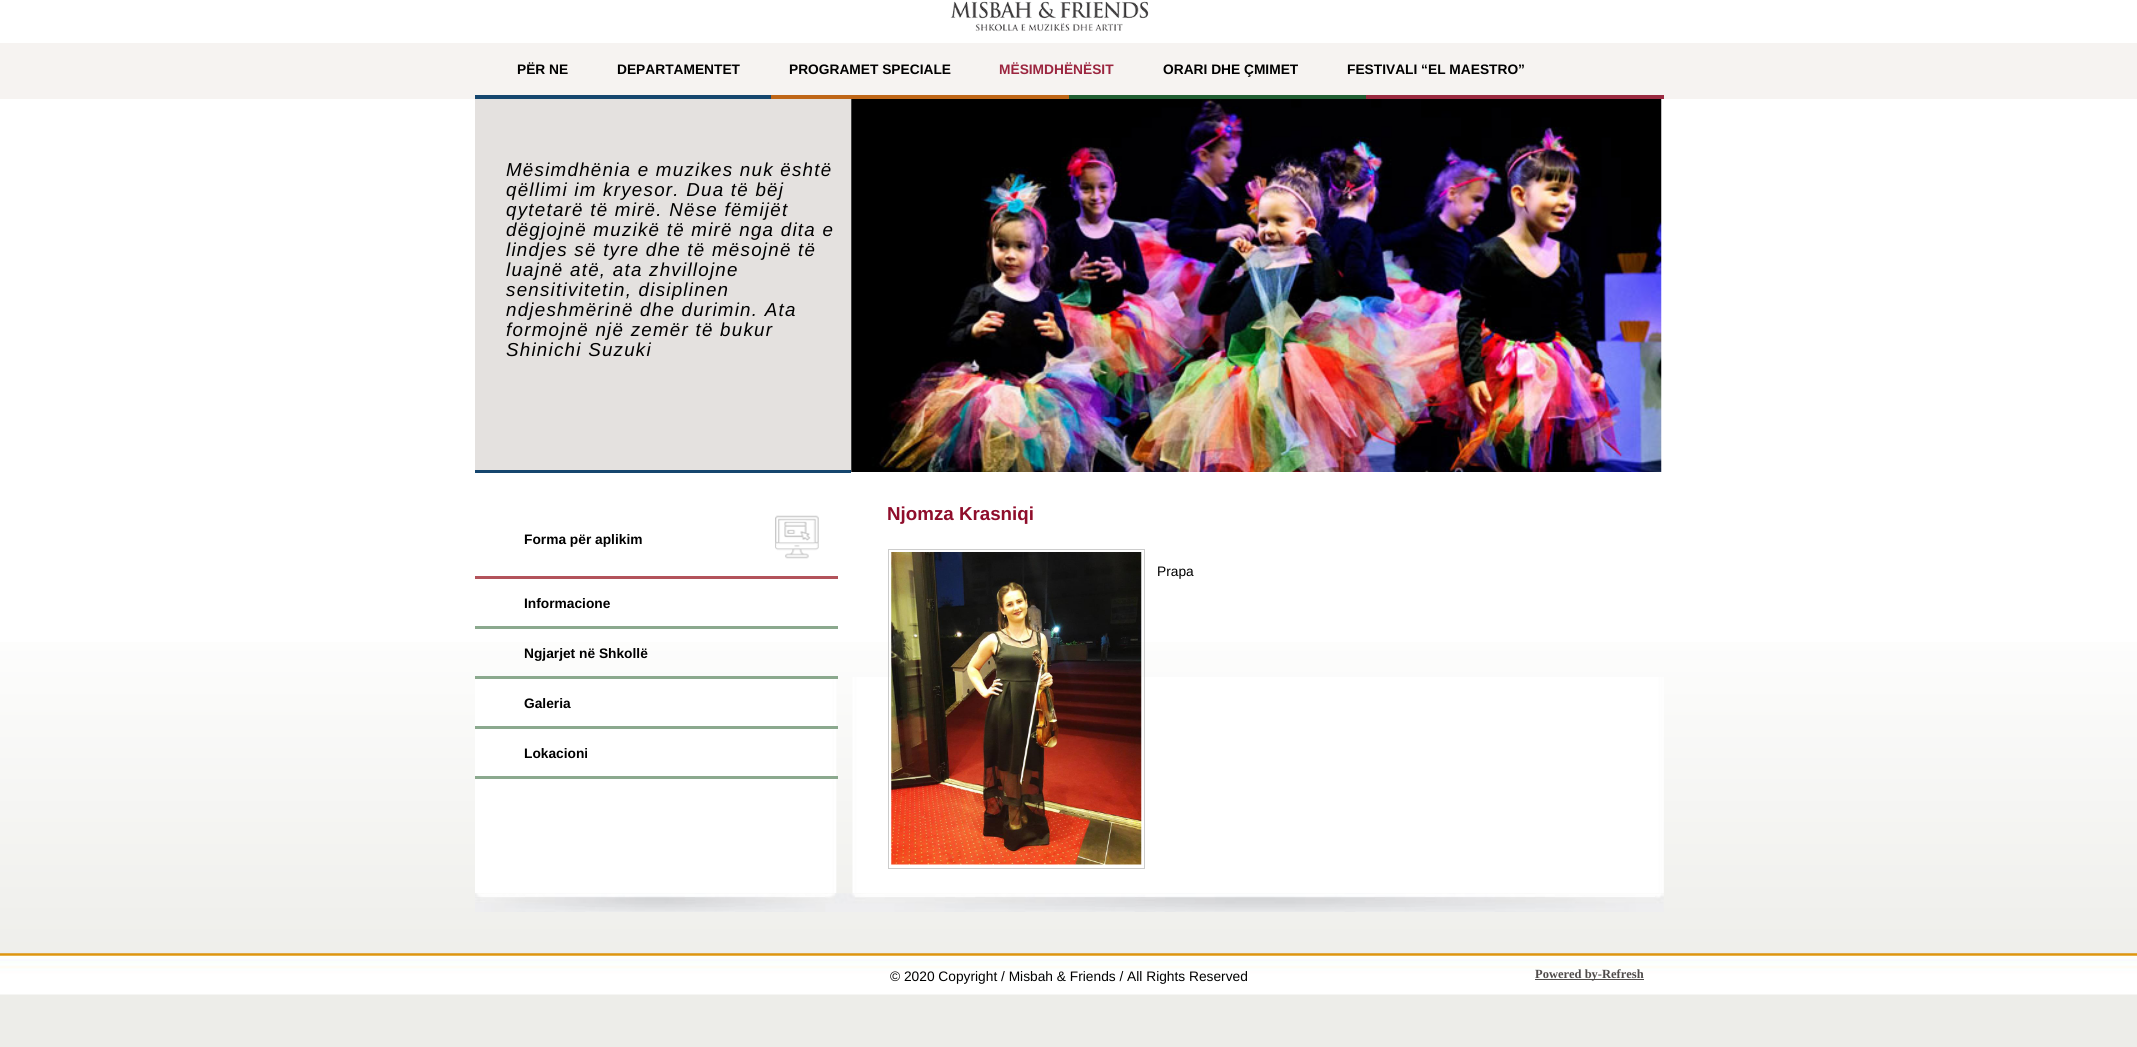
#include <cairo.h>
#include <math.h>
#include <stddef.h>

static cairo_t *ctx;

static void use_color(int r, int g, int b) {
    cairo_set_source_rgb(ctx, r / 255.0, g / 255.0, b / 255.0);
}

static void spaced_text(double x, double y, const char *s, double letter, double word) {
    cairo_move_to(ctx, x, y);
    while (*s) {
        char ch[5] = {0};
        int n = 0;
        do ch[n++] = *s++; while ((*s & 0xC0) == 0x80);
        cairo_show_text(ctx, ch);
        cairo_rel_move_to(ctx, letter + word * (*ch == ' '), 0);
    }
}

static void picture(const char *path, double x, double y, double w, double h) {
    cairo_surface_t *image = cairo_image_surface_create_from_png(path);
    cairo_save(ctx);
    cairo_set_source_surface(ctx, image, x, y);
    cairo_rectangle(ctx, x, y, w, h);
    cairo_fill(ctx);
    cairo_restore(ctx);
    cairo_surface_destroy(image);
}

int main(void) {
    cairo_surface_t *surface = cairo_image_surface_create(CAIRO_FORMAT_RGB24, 2137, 1047);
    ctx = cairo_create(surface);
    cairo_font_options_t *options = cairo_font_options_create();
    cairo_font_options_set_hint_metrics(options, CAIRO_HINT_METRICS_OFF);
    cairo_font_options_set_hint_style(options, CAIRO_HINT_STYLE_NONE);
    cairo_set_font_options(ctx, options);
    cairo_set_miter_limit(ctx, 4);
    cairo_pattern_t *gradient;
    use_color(255, 255, 255);
    cairo_paint(ctx);
    use_color(246, 243, 241);
    cairo_rectangle(ctx, 0, 43, 2137, 56);
    cairo_fill(ctx);
    picture("img1.png", 950, 1, 199, 31);
    cairo_select_font_face(ctx, "Liberation Sans", CAIRO_FONT_SLANT_NORMAL, CAIRO_FONT_WEIGHT_BOLD);
    cairo_set_font_size(ctx, 13.75);
    use_color(0, 0, 0);
    cairo_move_to(ctx, 517, 74);
    cairo_show_text(ctx, "PËR NE");
    cairo_move_to(ctx, 617, 74);
    cairo_show_text(ctx, "DEPARTAMENTET");
    cairo_move_to(ctx, 789, 74);
    cairo_show_text(ctx, "PROGRAMET SPECIALE");
    use_color(155, 37, 63);
    cairo_move_to(ctx, 999, 74);
    cairo_show_text(ctx, "MËSIMDHËNËSIT");
    use_color(0, 0, 0);
    cairo_move_to(ctx, 1163, 74);
    cairo_show_text(ctx, "ORARI DHE ÇMIMET");
    cairo_move_to(ctx, 1347, 74);
    cairo_show_text(ctx, "FESTIVALI “EL MAESTRO”");
    use_color(21, 70, 110);
    cairo_rectangle(ctx, 475, 95, 296, 4);
    cairo_fill(ctx);
    use_color(191, 102, 23);
    cairo_rectangle(ctx, 771, 95, 298, 4);
    cairo_fill(ctx);
    use_color(33, 95, 51);
    cairo_rectangle(ctx, 1069, 95, 297, 4);
    cairo_fill(ctx);
    use_color(154, 42, 64);
    cairo_rectangle(ctx, 1366, 95, 298, 4);
    cairo_fill(ctx);
    use_color(228, 225, 223);
    cairo_rectangle(ctx, 475, 99, 376, 371);
    cairo_fill(ctx);
    use_color(21, 70, 110);
    cairo_rectangle(ctx, 475, 470, 376, 3);
    cairo_fill(ctx);
    cairo_select_font_face(ctx, "Liberation Sans", CAIRO_FONT_SLANT_ITALIC, CAIRO_FONT_WEIGHT_NORMAL);
    cairo_set_font_size(ctx, 18.75);
    use_color(0, 0, 0);
    spaced_text(506, 176, "Mësimdhënia e muzikes nuk është", 1.25, 0);
    spaced_text(506, 196, "qëllimi im kryesor. Dua të bëj", 1.25, 0);
    spaced_text(506, 216, "qytetarë të mirë. Nëse fëmijët", 1.25, 0);
    spaced_text(506, 236, "dëgjojnë muzikë të mirë nga dita e", 1.25, 0);
    spaced_text(506, 256, "lindjes së tyre dhe të mësojnë të", 1.25, 0);
    spaced_text(506, 276, "luajnë atë, ata zhvillojne", 1.25, 0);
    spaced_text(506, 296, "sensitivitetin, disiplinen", 1.25, 0);
    spaced_text(506, 316, "ndjeshmërinë dhe durimin. Ata", 1.25, 0);
    spaced_text(506, 336, "formojnë një zemër të bukur", 1.25, 0);
    spaced_text(506, 356, "Shinichi Suzuki", 1.25, 0);
    picture("img2.png", 851, 99, 811, 373);
    gradient = cairo_pattern_create_linear(1069, 42, 1069, 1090);
    cairo_pattern_add_color_stop_rgba(gradient, 0, 1, 1, 1, 1);
    cairo_pattern_add_color_stop_rgba(gradient, 0.53, 1, 1, 1, 1);
    cairo_pattern_add_color_stop_rgba(gradient, 0.9, 0.929, 0.929, 0.914, 1);
    cairo_pattern_add_color_stop_rgba(gradient, 1, 0.929, 0.929, 0.914, 1);
    cairo_set_source(ctx, gradient);
    cairo_pattern_destroy(gradient);
    cairo_rectangle(ctx, 0, 642, 2137, 405);
    cairo_fill(ctx);
    picture("img3.png", 475, 893, 1189, 19);
    picture("img4.png", 475, 677, 1189, 216);
    use_color(179, 83, 91);
    cairo_rectangle(ctx, 475, 576, 363, 3);
    cairo_fill(ctx);
    cairo_select_font_face(ctx, "Liberation Sans", CAIRO_FONT_SLANT_NORMAL, CAIRO_FONT_WEIGHT_BOLD);
    cairo_set_font_size(ctx, 13.75);
    use_color(0, 0, 0);
    cairo_move_to(ctx, 524, 544);
    cairo_show_text(ctx, "Forma për aplikim");
    picture("img5.png", 775, 515, 44, 44);
    use_color(139, 169, 142);
    cairo_rectangle(ctx, 475, 626, 363, 3);
    cairo_fill(ctx);
    use_color(0, 0, 0);
    cairo_move_to(ctx, 524, 608);
    cairo_show_text(ctx, "Informacione");
    use_color(139, 169, 142);
    cairo_rectangle(ctx, 475, 676, 363, 3);
    cairo_fill(ctx);
    use_color(0, 0, 0);
    cairo_move_to(ctx, 524, 658);
    cairo_show_text(ctx, "Ngjarjet në Shkollë");
    use_color(139, 169, 142);
    cairo_rectangle(ctx, 475, 726, 363, 3);
    cairo_fill(ctx);
    use_color(0, 0, 0);
    cairo_move_to(ctx, 524, 708);
    cairo_show_text(ctx, "Galeria");
    use_color(139, 169, 142);
    cairo_rectangle(ctx, 475, 776, 363, 3);
    cairo_fill(ctx);
    use_color(0, 0, 0);
    cairo_move_to(ctx, 524, 758);
    cairo_show_text(ctx, "Lokacioni");
    cairo_set_font_size(ctx, 18.75);
    use_color(143, 13, 43);
    cairo_move_to(ctx, 887, 520);
    cairo_show_text(ctx, "Njomza Krasniqi");
    cairo_rectangle(ctx, 888.5, 549.5, 256, 319);
    use_color(204, 204, 204);
    cairo_set_line_width(ctx, 1);
    cairo_stroke(ctx);
    picture("img6.png", 891, 552, 251, 313);
    cairo_select_font_face(ctx, "Liberation Sans", CAIRO_FONT_SLANT_NORMAL, CAIRO_FONT_WEIGHT_NORMAL);
    cairo_set_font_size(ctx, 13.75);
    use_color(0, 0, 0);
    cairo_move_to(ctx, 1157, 576);
    cairo_show_text(ctx, "Prapa");
    picture("img7.png", 0, 953, 2137, 42);
    cairo_move_to(ctx, 890, 981);
    cairo_show_text(ctx, "© 2020 Copyright / Misbah & Friends / All Rights Reserved");
    use_color(80, 76, 75);
    cairo_rectangle(ctx, 1535, 979, 109, 1);
    cairo_fill(ctx);
    cairo_select_font_face(ctx, "Liberation Serif", CAIRO_FONT_SLANT_NORMAL, CAIRO_FONT_WEIGHT_BOLD);
    cairo_set_font_size(ctx, 12.5);
    cairo_move_to(ctx, 1535, 978);
    cairo_show_text(ctx, "Powered by-Refresh");
    cairo_surface_write_to_png(surface, "result.png");
    cairo_font_options_destroy(options);
    cairo_destroy(ctx);
    cairo_surface_destroy(surface);
    return 0;
}
